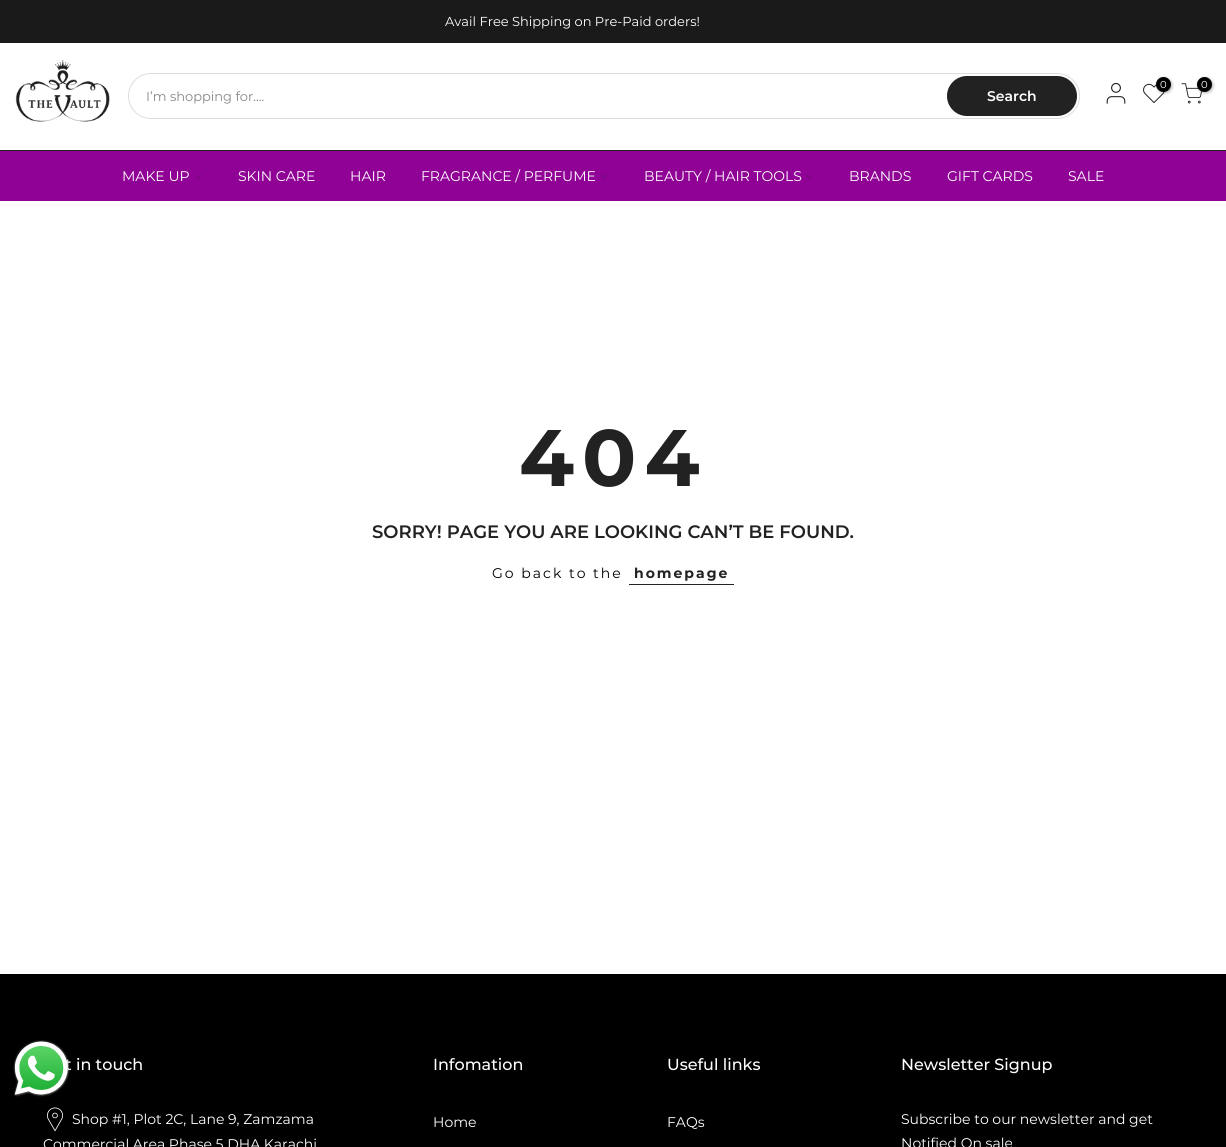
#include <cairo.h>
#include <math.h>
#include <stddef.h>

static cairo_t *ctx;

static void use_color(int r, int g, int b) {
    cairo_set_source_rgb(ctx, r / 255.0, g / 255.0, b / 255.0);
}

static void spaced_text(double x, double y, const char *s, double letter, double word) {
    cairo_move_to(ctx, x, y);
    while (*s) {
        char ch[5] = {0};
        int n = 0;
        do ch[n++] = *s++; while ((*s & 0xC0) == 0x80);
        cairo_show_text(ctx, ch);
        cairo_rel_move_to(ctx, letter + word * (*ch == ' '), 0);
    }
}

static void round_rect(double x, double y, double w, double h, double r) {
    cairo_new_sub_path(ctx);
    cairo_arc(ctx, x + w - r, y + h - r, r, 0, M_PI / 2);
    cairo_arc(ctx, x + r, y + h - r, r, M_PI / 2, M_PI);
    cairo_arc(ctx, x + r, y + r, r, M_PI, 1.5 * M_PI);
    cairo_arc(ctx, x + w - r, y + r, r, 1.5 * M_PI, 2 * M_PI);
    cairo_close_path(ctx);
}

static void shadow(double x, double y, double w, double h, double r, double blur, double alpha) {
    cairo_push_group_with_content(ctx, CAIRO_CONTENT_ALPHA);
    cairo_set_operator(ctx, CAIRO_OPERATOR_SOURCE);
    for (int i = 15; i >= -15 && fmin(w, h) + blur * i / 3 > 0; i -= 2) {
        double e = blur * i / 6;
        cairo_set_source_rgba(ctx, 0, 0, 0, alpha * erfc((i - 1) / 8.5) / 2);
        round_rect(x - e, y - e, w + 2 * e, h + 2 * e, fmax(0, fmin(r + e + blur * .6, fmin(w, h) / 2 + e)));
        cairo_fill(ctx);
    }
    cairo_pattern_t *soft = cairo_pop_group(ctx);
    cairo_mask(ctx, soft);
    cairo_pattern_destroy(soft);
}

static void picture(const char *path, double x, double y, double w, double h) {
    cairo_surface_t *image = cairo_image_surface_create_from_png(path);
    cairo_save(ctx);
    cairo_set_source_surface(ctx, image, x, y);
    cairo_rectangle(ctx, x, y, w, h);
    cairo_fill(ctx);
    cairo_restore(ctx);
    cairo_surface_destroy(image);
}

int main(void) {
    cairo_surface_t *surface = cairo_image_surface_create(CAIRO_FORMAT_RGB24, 1226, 1147);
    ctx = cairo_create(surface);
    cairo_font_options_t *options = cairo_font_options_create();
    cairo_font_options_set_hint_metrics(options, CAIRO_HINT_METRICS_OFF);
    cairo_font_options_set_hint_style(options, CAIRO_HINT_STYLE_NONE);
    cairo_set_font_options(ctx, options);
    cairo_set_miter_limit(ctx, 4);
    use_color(255, 255, 255);
    cairo_paint(ctx);
    use_color(0, 0, 0);
    cairo_rectangle(ctx, 0, 974, 1226, 173);
    cairo_fill(ctx);
    cairo_select_font_face(ctx, "Montserrat Medium", CAIRO_FONT_SLANT_NORMAL, CAIRO_FONT_WEIGHT_NORMAL);
    cairo_set_font_size(ctx, 16);
    use_color(255, 255, 255);
    cairo_move_to(ctx, 65, 1070);
    cairo_show_text(ctx, "t in touch");
    picture("img1.png", 13, 1040, 57, 57);
    use_color(26, 26, 26);
    cairo_rectangle(ctx, 0, 0, 1226, 43);
    cairo_fill(ctx);
    cairo_select_font_face(ctx, "Montserrat", CAIRO_FONT_SLANT_NORMAL, CAIRO_FONT_WEIGHT_NORMAL);
    cairo_set_font_size(ctx, 13);
    use_color(255, 255, 255);
    cairo_move_to(ctx, 445, 26);
    cairo_show_text(ctx, "Avail Free Shipping on Pre-Paid orders!");
    picture("img2.png", 15, 60, 95, 62);
    picture("img3.png", 1106, 82, 20, 22);
    picture("img4.png", 1143, 83, 22, 20);
    use_color(0, 0, 0);
    shadow(1157, 78, 15, 15, 7.5, 1.5, 0.3);
    use_color(0, 0, 0);
    cairo_arc(ctx, 1163.5, 84.5, 7.5, 0, 2 * M_PI);
    cairo_fill(ctx);
    cairo_set_font_size(ctx, 10);
    use_color(255, 255, 255);
    cairo_move_to(ctx, 1160, 88);
    cairo_show_text(ctx, "0");
    picture("img5.png", 1181, 83, 21, 21);
    use_color(0, 0, 0);
    shadow(1198, 78, 15, 15, 7.5, 1.5, 0.3);
    use_color(0, 0, 0);
    cairo_arc(ctx, 1204.5, 84.5, 7.5, 0, 2 * M_PI);
    cairo_fill(ctx);
    use_color(255, 255, 255);
    cairo_move_to(ctx, 1201, 88);
    cairo_show_text(ctx, "0");
    round_rect(128.5, 73.5, 951, 45, 22.5);
    use_color(221, 221, 221);
    cairo_set_line_width(ctx, 1);
    cairo_stroke(ctx);
    cairo_set_font_size(ctx, 13);
    use_color(135, 135, 135);
    cairo_move_to(ctx, 146, 101);
    cairo_show_text(ctx, "I’m shopping for....");
    use_color(34, 34, 34);
    round_rect(947, 76, 130, 40, 20);
    cairo_fill(ctx);
    cairo_select_font_face(ctx, "Montserrat SemiBold", CAIRO_FONT_SLANT_NORMAL, CAIRO_FONT_WEIGHT_NORMAL);
    cairo_set_font_size(ctx, 14);
    use_color(255, 255, 255);
    cairo_move_to(ctx, 987, 101);
    cairo_show_text(ctx, "Search");
    use_color(144, 2, 150);
    cairo_rectangle(ctx, 0, 151, 1226, 50);
    cairo_fill(ctx);
    use_color(34, 34, 34);
    cairo_rectangle(ctx, 0, 150, 1226, 1);
    cairo_fill(ctx);
    cairo_select_font_face(ctx, "Montserrat", CAIRO_FONT_SLANT_NORMAL, CAIRO_FONT_WEIGHT_NORMAL);
    use_color(255, 255, 255);
    cairo_move_to(ctx, 122, 181);
    cairo_show_text(ctx, "MAKE UP");
    picture("img6.png", 194, 174, 9, 5);
    cairo_move_to(ctx, 238, 181);
    cairo_show_text(ctx, "SKIN CARE");
    cairo_move_to(ctx, 350, 181);
    cairo_show_text(ctx, "HAIR");
    cairo_move_to(ctx, 421, 181);
    cairo_show_text(ctx, "FRAGRANCE / PERFUME");
    picture("img6.png", 600, 174, 9, 5);
    cairo_move_to(ctx, 644, 181);
    cairo_show_text(ctx, "BEAUTY / HAIR TOOLS");
    picture("img6.png", 805, 174, 9, 5);
    cairo_move_to(ctx, 849, 181);
    cairo_show_text(ctx, "BRANDS");
    cairo_move_to(ctx, 947, 181);
    cairo_show_text(ctx, "GIFT CARDS");
    cairo_move_to(ctx, 1068, 181);
    cairo_show_text(ctx, "SALE");
    cairo_select_font_face(ctx, "Montserrat", CAIRO_FONT_SLANT_NORMAL, CAIRO_FONT_WEIGHT_BOLD);
    cairo_set_font_size(ctx, 80);
    use_color(34, 34, 34);
    spaced_text(519, 486, "404", 8, 0);
    cairo_select_font_face(ctx, "Montserrat SemiBold", CAIRO_FONT_SLANT_NORMAL, CAIRO_FONT_WEIGHT_NORMAL);
    cairo_set_font_size(ctx, 18);
    cairo_move_to(ctx, 372, 538);
    cairo_show_text(ctx, "SORRY! PAGE YOU ARE LOOKING CAN’T BE FOUND.");
    cairo_select_font_face(ctx, "Montserrat", CAIRO_FONT_SLANT_NORMAL, CAIRO_FONT_WEIGHT_NORMAL);
    cairo_set_font_size(ctx, 14);
    use_color(0, 0, 0);
    spaced_text(492, 578, "Go back to the", 2, 0);
    cairo_select_font_face(ctx, "Montserrat", CAIRO_FONT_SLANT_NORMAL, CAIRO_FONT_WEIGHT_BOLD);
    use_color(34, 34, 34);
    spaced_text(634, 578, "homepage", 2, 0);
    cairo_rectangle(ctx, 629, 584, 105, 1);
    cairo_fill(ctx);
    picture("img7.png", 47, 1107, 16, 25);
    cairo_select_font_face(ctx, "Montserrat", CAIRO_FONT_SLANT_NORMAL, CAIRO_FONT_WEIGHT_NORMAL);
    use_color(255, 255, 255);
    cairo_move_to(ctx, 72, 1124);
    cairo_show_text(ctx, "Shop #1, Plot 2C, Lane 9, Zamzama");
    cairo_move_to(ctx, 43, 1149);
    cairo_show_text(ctx, "Commercial Area Phase 5 DHA Karachi");
    cairo_select_font_face(ctx, "Montserrat Medium", CAIRO_FONT_SLANT_NORMAL, CAIRO_FONT_WEIGHT_NORMAL);
    cairo_set_font_size(ctx, 16);
    cairo_move_to(ctx, 433, 1070);
    cairo_show_text(ctx, "Infomation");
    cairo_select_font_face(ctx, "Montserrat", CAIRO_FONT_SLANT_NORMAL, CAIRO_FONT_WEIGHT_NORMAL);
    cairo_set_font_size(ctx, 14);
    cairo_move_to(ctx, 433, 1127);
    cairo_show_text(ctx, "Home");
    cairo_select_font_face(ctx, "Montserrat Medium", CAIRO_FONT_SLANT_NORMAL, CAIRO_FONT_WEIGHT_NORMAL);
    cairo_set_font_size(ctx, 16);
    cairo_move_to(ctx, 667, 1070);
    cairo_show_text(ctx, "Useful links");
    cairo_select_font_face(ctx, "Montserrat", CAIRO_FONT_SLANT_NORMAL, CAIRO_FONT_WEIGHT_NORMAL);
    cairo_set_font_size(ctx, 14);
    cairo_move_to(ctx, 667, 1127);
    cairo_show_text(ctx, "FAQs");
    cairo_select_font_face(ctx, "Montserrat Medium", CAIRO_FONT_SLANT_NORMAL, CAIRO_FONT_WEIGHT_NORMAL);
    cairo_set_font_size(ctx, 16);
    cairo_move_to(ctx, 901, 1070);
    cairo_show_text(ctx, "Newsletter Signup");
    cairo_select_font_face(ctx, "Montserrat", CAIRO_FONT_SLANT_NORMAL, CAIRO_FONT_WEIGHT_NORMAL);
    cairo_set_font_size(ctx, 14);
    cairo_move_to(ctx, 901, 1124);
    cairo_show_text(ctx, "Subscribe to our newsletter and get");
    cairo_move_to(ctx, 901, 1148);
    cairo_show_text(ctx, "Notified On sale");
    cairo_surface_write_to_png(surface, "result.png");
    cairo_font_options_destroy(options);
    cairo_destroy(ctx);
    cairo_surface_destroy(surface);
    return 0;
}
